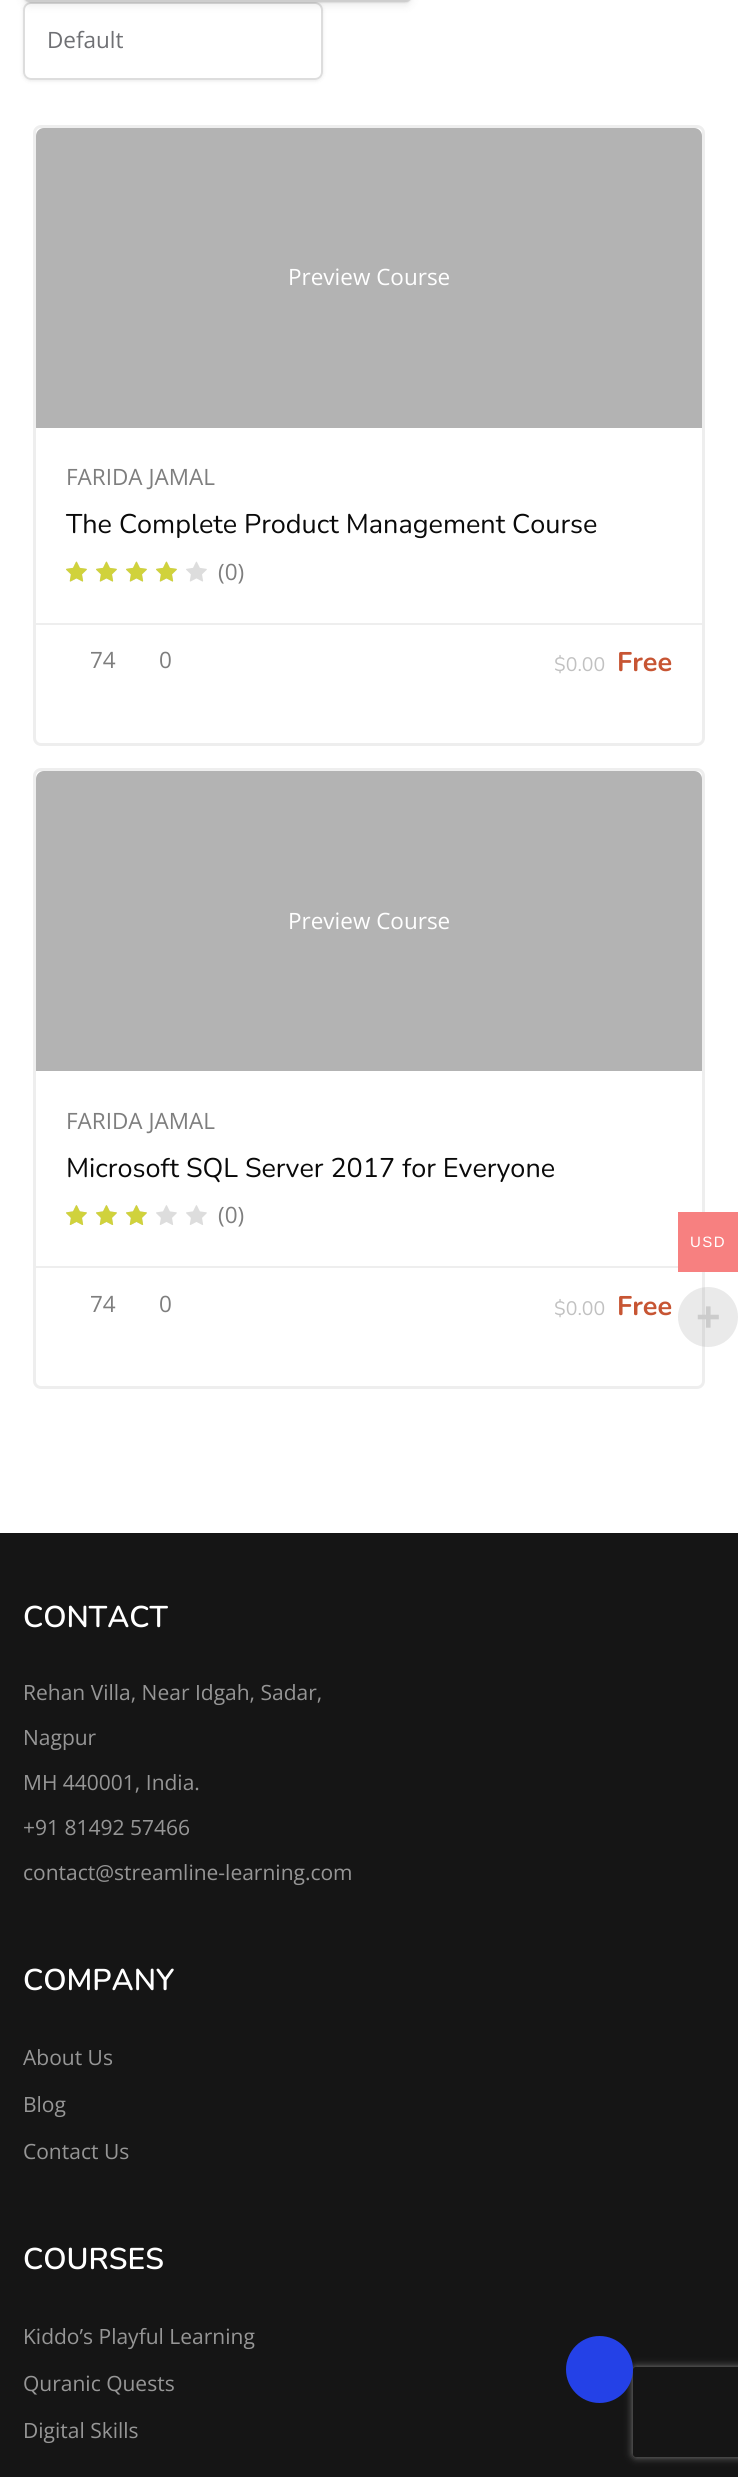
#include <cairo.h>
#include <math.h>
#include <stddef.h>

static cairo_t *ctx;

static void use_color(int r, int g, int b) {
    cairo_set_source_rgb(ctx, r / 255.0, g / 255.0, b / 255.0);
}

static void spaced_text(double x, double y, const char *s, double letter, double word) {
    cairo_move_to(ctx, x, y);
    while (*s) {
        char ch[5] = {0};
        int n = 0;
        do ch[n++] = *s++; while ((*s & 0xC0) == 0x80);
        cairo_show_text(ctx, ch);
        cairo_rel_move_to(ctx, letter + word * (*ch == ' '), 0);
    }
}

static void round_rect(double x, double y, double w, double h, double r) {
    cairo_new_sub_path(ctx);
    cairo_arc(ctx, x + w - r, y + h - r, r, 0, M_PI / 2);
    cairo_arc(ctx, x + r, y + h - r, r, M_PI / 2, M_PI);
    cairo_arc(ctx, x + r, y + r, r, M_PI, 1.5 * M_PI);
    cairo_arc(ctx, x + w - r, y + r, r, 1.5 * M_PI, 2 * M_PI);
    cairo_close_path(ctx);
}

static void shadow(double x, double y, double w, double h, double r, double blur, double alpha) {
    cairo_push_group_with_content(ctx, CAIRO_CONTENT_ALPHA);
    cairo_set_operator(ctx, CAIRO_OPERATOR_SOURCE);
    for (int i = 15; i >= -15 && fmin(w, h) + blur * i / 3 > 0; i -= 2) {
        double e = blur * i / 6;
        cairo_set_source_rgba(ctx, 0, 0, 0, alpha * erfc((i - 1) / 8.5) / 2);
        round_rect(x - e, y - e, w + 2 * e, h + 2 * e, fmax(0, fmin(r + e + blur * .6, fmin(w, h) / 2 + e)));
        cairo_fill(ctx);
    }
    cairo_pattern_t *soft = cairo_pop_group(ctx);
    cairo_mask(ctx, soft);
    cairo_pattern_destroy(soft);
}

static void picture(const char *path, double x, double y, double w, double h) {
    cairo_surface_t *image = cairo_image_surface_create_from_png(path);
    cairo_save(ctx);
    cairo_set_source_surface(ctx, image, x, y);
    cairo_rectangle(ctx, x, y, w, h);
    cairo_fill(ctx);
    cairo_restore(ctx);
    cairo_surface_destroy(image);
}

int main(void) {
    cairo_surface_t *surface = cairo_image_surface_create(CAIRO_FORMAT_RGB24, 738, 2477);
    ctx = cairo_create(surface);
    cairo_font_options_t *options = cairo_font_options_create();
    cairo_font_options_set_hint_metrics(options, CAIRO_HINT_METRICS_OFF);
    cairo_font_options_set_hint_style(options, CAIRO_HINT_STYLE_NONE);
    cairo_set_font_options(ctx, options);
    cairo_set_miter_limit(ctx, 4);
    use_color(255, 255, 255);
    cairo_paint(ctx);
    cairo_save(ctx);
    cairo_set_fill_rule(ctx, CAIRO_FILL_RULE_EVEN_ODD);
    cairo_new_path(ctx);
    cairo_move_to(ctx, 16, 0);
    cairo_line_to(ctx, 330, 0);
    cairo_line_to(ctx, 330, 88);
    cairo_line_to(ctx, 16, 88);
    cairo_close_path(ctx);
    cairo_move_to(ctx, 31, 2);
    cairo_line_to(ctx, 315, 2);
    cairo_curve_to(ctx, 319.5, 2, 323, 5.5, 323, 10);
    cairo_line_to(ctx, 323, 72);
    cairo_curve_to(ctx, 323, 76.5, 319.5, 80, 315, 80);
    cairo_line_to(ctx, 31, 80);
    cairo_curve_to(ctx, 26.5, 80, 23, 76.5, 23, 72);
    cairo_line_to(ctx, 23, 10);
    cairo_curve_to(ctx, 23, 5.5, 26.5, 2, 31, 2);
    cairo_close_path(ctx);
    cairo_clip(ctx);
    use_color(0, 0, 0);
    shadow(23, 3, 300, 78, 8, 2, 0.09);
    cairo_restore(ctx);
    round_rect(24, 3, 298, 76, 7);
    use_color(221, 221, 221);
    cairo_stroke(ctx);
    use_color(0, 0, 0);
    shadow(24, -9, 387, 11, 6, 1, 0.2);
    round_rect(24, -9, 388, 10, 7);
    use_color(221, 221, 221);
    cairo_stroke(ctx);
    use_color(0, 0, 0);
    shadow(24, -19, 387, 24, 5, 4.5, 0.09);
    cairo_select_font_face(ctx, "Open Sans", CAIRO_FONT_SLANT_NORMAL, CAIRO_FONT_WEIGHT_NORMAL);
    cairo_set_font_size(ctx, 22.5);
    use_color(111, 112, 116);
    cairo_move_to(ctx, 47, 48);
    cairo_show_text(ctx, "Default");
    round_rect(34.5, 126.5, 669, 618, 6.5);
    use_color(238, 238, 238);
    cairo_set_line_width(ctx, 3);
    cairo_stroke(ctx);
    use_color(179, 179, 179);
    cairo_new_path(ctx);
    cairo_move_to(ctx, 44, 128);
    cairo_line_to(ctx, 694, 128);
    cairo_curve_to(ctx, 698.5, 128, 702, 131.5, 702, 136);
    cairo_line_to(ctx, 702, 428);
    cairo_line_to(ctx, 36, 428);
    cairo_line_to(ctx, 36, 136);
    cairo_curve_to(ctx, 36, 131.5, 39.5, 128, 44, 128);
    cairo_close_path(ctx);
    cairo_fill(ctx);
    use_color(255, 255, 255);
    cairo_move_to(ctx, 288, 285);
    cairo_show_text(ctx, "Preview Course");
    use_color(126, 126, 126);
    cairo_move_to(ctx, 66, 485);
    cairo_show_text(ctx, "FARIDA JAMAL");
    cairo_select_font_face(ctx, "Nunito", CAIRO_FONT_SLANT_NORMAL, CAIRO_FONT_WEIGHT_NORMAL);
    cairo_set_font_size(ctx, 27);
    use_color(10, 10, 10);
    cairo_move_to(ctx, 66, 533);
    cairo_show_text(ctx, "The Complete Product Management Course");
    picture("img1.png", 66, 561, 21, 21);
    picture("img1.png", 96, 561, 21, 21);
    picture("img1.png", 126, 561, 21, 21);
    picture("img1.png", 156, 561, 21, 21);
    picture("img1.png", 186, 561, 21, 21);
    picture("img2.png", 66, 561, 21, 21);
    picture("img2.png", 96, 561, 21, 21);
    picture("img2.png", 126, 561, 21, 21);
    picture("img2.png", 156, 561, 21, 21);
    cairo_select_font_face(ctx, "Open Sans", CAIRO_FONT_SLANT_NORMAL, CAIRO_FONT_WEIGHT_NORMAL);
    cairo_set_font_size(ctx, 22.5);
    use_color(126, 126, 126);
    cairo_move_to(ctx, 218, 580);
    cairo_show_text(ctx, "(0)");
    use_color(238, 238, 238);
    cairo_rectangle(ctx, 36, 623, 666, 2);
    cairo_fill(ctx);
    use_color(126, 126, 126);
    cairo_move_to(ctx, 90, 668);
    cairo_show_text(ctx, "74");
    cairo_move_to(ctx, 159, 668);
    cairo_show_text(ctx, "0");
    cairo_select_font_face(ctx, "Nunito", CAIRO_FONT_SLANT_NORMAL, CAIRO_FONT_WEIGHT_NORMAL);
    cairo_set_font_size(ctx, 19.5);
    use_color(193, 193, 193);
    cairo_move_to(ctx, 554, 671);
    cairo_show_text(ctx, "$0.00");
    cairo_select_font_face(ctx, "Nunito", CAIRO_FONT_SLANT_NORMAL, CAIRO_FONT_WEIGHT_BOLD);
    cairo_set_font_size(ctx, 27);
    use_color(199, 85, 51);
    cairo_move_to(ctx, 617, 671);
    cairo_show_text(ctx, "Free");
    round_rect(34.5, 769.5, 669, 618, 6.5);
    use_color(238, 238, 238);
    cairo_stroke(ctx);
    use_color(179, 179, 179);
    cairo_new_path(ctx);
    cairo_move_to(ctx, 44, 771);
    cairo_line_to(ctx, 694, 771);
    cairo_curve_to(ctx, 698.5, 771, 702, 774.5, 702, 779);
    cairo_line_to(ctx, 702, 1071);
    cairo_line_to(ctx, 36, 1071);
    cairo_line_to(ctx, 36, 779);
    cairo_curve_to(ctx, 36, 774.5, 39.5, 771, 44, 771);
    cairo_close_path(ctx);
    cairo_fill(ctx);
    cairo_select_font_face(ctx, "Open Sans", CAIRO_FONT_SLANT_NORMAL, CAIRO_FONT_WEIGHT_NORMAL);
    cairo_set_font_size(ctx, 22.5);
    use_color(255, 255, 255);
    cairo_move_to(ctx, 288, 929);
    cairo_show_text(ctx, "Preview Course");
    use_color(126, 126, 126);
    cairo_move_to(ctx, 66, 1129);
    cairo_show_text(ctx, "FARIDA JAMAL");
    cairo_select_font_face(ctx, "Nunito", CAIRO_FONT_SLANT_NORMAL, CAIRO_FONT_WEIGHT_NORMAL);
    cairo_set_font_size(ctx, 27);
    use_color(10, 10, 10);
    cairo_move_to(ctx, 66, 1177);
    cairo_show_text(ctx, "Microsoft SQL Server 2017 for Everyone");
    picture("img3.png", 66, 1205, 21, 20);
    picture("img3.png", 96, 1205, 21, 20);
    picture("img3.png", 126, 1205, 21, 20);
    picture("img3.png", 156, 1205, 21, 20);
    picture("img3.png", 186, 1205, 21, 20);
    picture("img4.png", 66, 1205, 21, 20);
    picture("img4.png", 96, 1205, 21, 20);
    picture("img4.png", 126, 1205, 21, 20);
    cairo_select_font_face(ctx, "Open Sans", CAIRO_FONT_SLANT_NORMAL, CAIRO_FONT_WEIGHT_NORMAL);
    cairo_set_font_size(ctx, 22.5);
    use_color(126, 126, 126);
    cairo_move_to(ctx, 218, 1223);
    cairo_show_text(ctx, "(0)");
    use_color(238, 238, 238);
    cairo_rectangle(ctx, 36, 1266, 642, 2);
    cairo_fill(ctx);
    use_color(126, 126, 126);
    cairo_move_to(ctx, 90, 1312);
    cairo_show_text(ctx, "74");
    cairo_move_to(ctx, 159, 1312);
    cairo_show_text(ctx, "0");
    cairo_select_font_face(ctx, "Nunito", CAIRO_FONT_SLANT_NORMAL, CAIRO_FONT_WEIGHT_NORMAL);
    cairo_set_font_size(ctx, 19.5);
    use_color(193, 193, 193);
    cairo_move_to(ctx, 554, 1315);
    cairo_show_text(ctx, "$0.00");
    cairo_select_font_face(ctx, "Nunito", CAIRO_FONT_SLANT_NORMAL, CAIRO_FONT_WEIGHT_BOLD);
    cairo_set_font_size(ctx, 27);
    use_color(199, 85, 51);
    cairo_move_to(ctx, 617, 1315);
    cairo_show_text(ctx, "Free");
    use_color(21, 21, 21);
    cairo_rectangle(ctx, 0, 1533, 738, 944);
    cairo_fill(ctx);
    cairo_select_font_face(ctx, "Nunito SemiBold", CAIRO_FONT_SLANT_NORMAL, CAIRO_FONT_WEIGHT_NORMAL);
    cairo_set_font_size(ctx, 30);
    use_color(255, 255, 255);
    cairo_move_to(ctx, 23, 1627);
    cairo_show_text(ctx, "CONTACT");
    cairo_select_font_face(ctx, "Open Sans", CAIRO_FONT_SLANT_NORMAL, CAIRO_FONT_WEIGHT_NORMAL);
    cairo_set_font_size(ctx, 21);
    use_color(150, 150, 150);
    cairo_move_to(ctx, 23, 1700);
    cairo_show_text(ctx, "Rehan Villa, Near Idgah, Sadar,");
    cairo_move_to(ctx, 23, 1745);
    cairo_show_text(ctx, "Nagpur");
    cairo_move_to(ctx, 23, 1790);
    cairo_show_text(ctx, "MH 440001, India.");
    cairo_move_to(ctx, 23, 1835);
    cairo_show_text(ctx, "+91 81492 57466");
    cairo_move_to(ctx, 23, 1880);
    cairo_show_text(ctx, "contact@streamline-learning.com");
    cairo_select_font_face(ctx, "Nunito SemiBold", CAIRO_FONT_SLANT_NORMAL, CAIRO_FONT_WEIGHT_NORMAL);
    cairo_set_font_size(ctx, 30);
    use_color(255, 255, 255);
    cairo_move_to(ctx, 23, 1990);
    cairo_show_text(ctx, "COMPANY");
    cairo_select_font_face(ctx, "Open Sans", CAIRO_FONT_SLANT_NORMAL, CAIRO_FONT_WEIGHT_NORMAL);
    cairo_set_font_size(ctx, 21);
    use_color(150, 150, 150);
    cairo_move_to(ctx, 23, 2065);
    cairo_show_text(ctx, "About Us");
    cairo_move_to(ctx, 23, 2112);
    cairo_show_text(ctx, "Blog");
    cairo_move_to(ctx, 23, 2159);
    cairo_show_text(ctx, "Contact Us");
    cairo_select_font_face(ctx, "Nunito SemiBold", CAIRO_FONT_SLANT_NORMAL, CAIRO_FONT_WEIGHT_NORMAL);
    cairo_set_font_size(ctx, 30);
    use_color(255, 255, 255);
    cairo_move_to(ctx, 23, 2269);
    cairo_show_text(ctx, "COURSES");
    cairo_select_font_face(ctx, "Open Sans", CAIRO_FONT_SLANT_NORMAL, CAIRO_FONT_WEIGHT_NORMAL);
    cairo_set_font_size(ctx, 21);
    use_color(150, 150, 150);
    cairo_move_to(ctx, 23, 2344);
    cairo_show_text(ctx, "Kiddo’s Playful Learning");
    cairo_move_to(ctx, 23, 2391);
    cairo_show_text(ctx, "Quranic Quests");
    cairo_move_to(ctx, 23, 2438);
    cairo_show_text(ctx, "Digital Skills");
    cairo_save(ctx);
    cairo_set_fill_rule(ctx, CAIRO_FILL_RULE_EVEN_ODD);
    cairo_new_path(ctx);
    cairo_move_to(ctx, 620, 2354);
    cairo_line_to(ctx, 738, 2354);
    cairo_line_to(ctx, 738, 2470);
    cairo_line_to(ctx, 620, 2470);
    cairo_close_path(ctx);
    cairo_move_to(ctx, 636, 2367);
    cairo_line_to(ctx, 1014, 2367);
    cairo_curve_to(ctx, 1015.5, 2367, 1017, 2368.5, 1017, 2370);
    cairo_line_to(ctx, 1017, 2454);
    cairo_curve_to(ctx, 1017, 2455.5, 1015.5, 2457, 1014, 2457);
    cairo_line_to(ctx, 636, 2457);
    cairo_curve_to(ctx, 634.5, 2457, 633, 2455.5, 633, 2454);
    cairo_line_to(ctx, 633, 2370);
    cairo_curve_to(ctx, 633, 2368.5, 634.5, 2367, 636, 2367);
    cairo_close_path(ctx);
    cairo_clip(ctx);
    use_color(128, 128, 128);
    shadow(633, 2367, 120, 90, 3, 4, 1);
    cairo_restore(ctx);
    use_color(36, 65, 231);
    cairo_arc(ctx, 599.5, 2369.5, 33.5, 0, 2 * M_PI);
    cairo_fill(ctx);
    use_color(247, 128, 128);
    cairo_rectangle(ctx, 678, 1212, 60, 60);
    cairo_fill(ctx);
    cairo_select_font_face(ctx, "Liberation Sans", CAIRO_FONT_SLANT_NORMAL, CAIRO_FONT_WEIGHT_NORMAL);
    cairo_set_font_size(ctx, 15);
    use_color(255, 255, 255);
    spaced_text(690, 1247, "USD", 1.5, 0);
    cairo_set_source_rgba(ctx, 0.6, 0.6, 0.6, 0.2);
    cairo_new_path(ctx);
    cairo_arc(ctx, 708, 1317, 30, 0, 2 * M_PI);
    cairo_fill(ctx);
    cairo_select_font_face(ctx, "Liberation Sans", CAIRO_FONT_SLANT_NORMAL, CAIRO_FONT_WEIGHT_BOLD);
    cairo_set_font_size(ctx, 42);
    use_color(204, 204, 204);
    cairo_move_to(ctx, 696, 1331);
    cairo_show_text(ctx, "+");
    cairo_surface_write_to_png(surface, "result.png");
    cairo_font_options_destroy(options);
    cairo_destroy(ctx);
    cairo_surface_destroy(surface);
    return 0;
}
